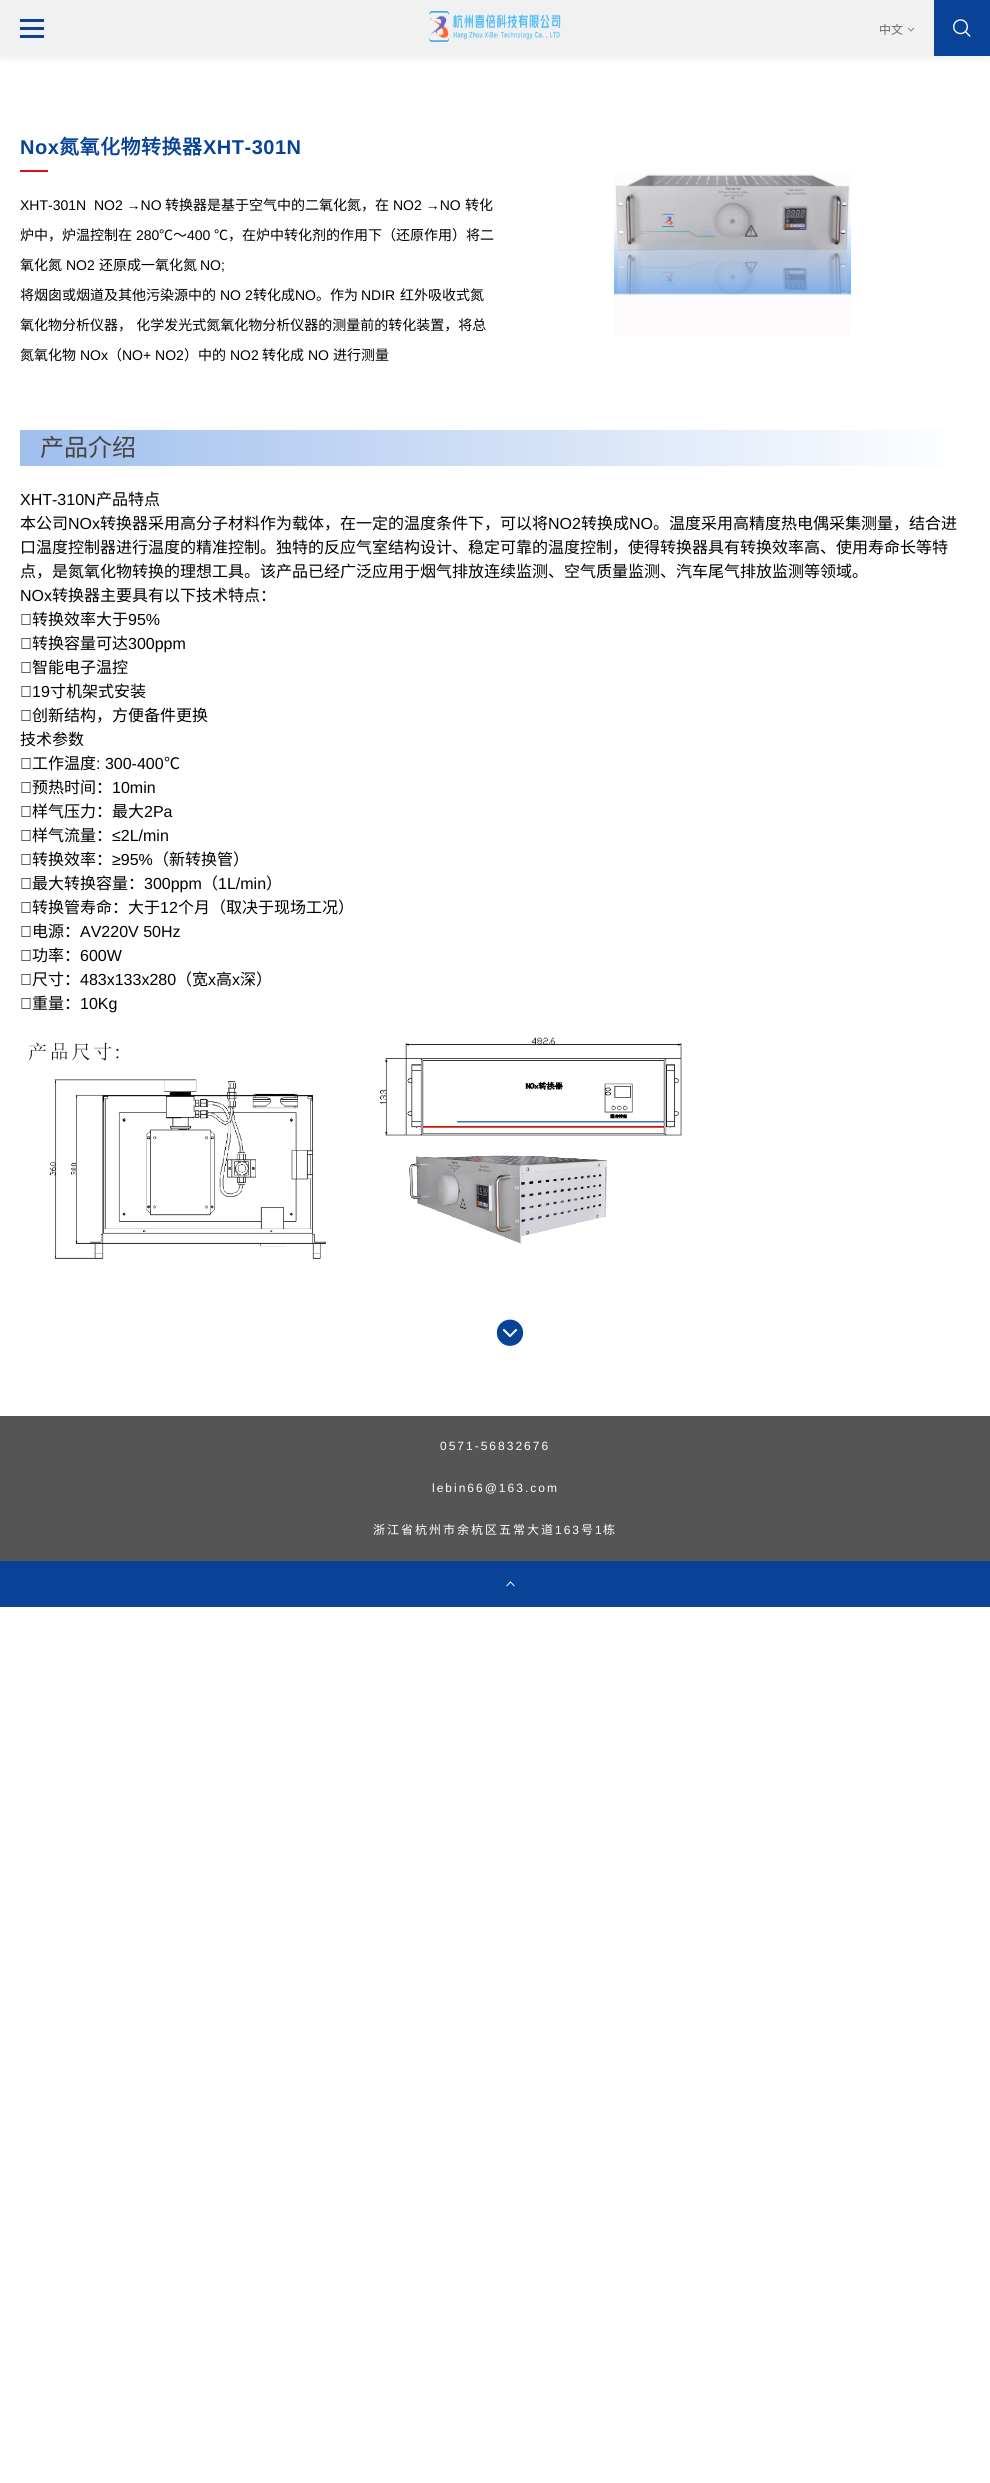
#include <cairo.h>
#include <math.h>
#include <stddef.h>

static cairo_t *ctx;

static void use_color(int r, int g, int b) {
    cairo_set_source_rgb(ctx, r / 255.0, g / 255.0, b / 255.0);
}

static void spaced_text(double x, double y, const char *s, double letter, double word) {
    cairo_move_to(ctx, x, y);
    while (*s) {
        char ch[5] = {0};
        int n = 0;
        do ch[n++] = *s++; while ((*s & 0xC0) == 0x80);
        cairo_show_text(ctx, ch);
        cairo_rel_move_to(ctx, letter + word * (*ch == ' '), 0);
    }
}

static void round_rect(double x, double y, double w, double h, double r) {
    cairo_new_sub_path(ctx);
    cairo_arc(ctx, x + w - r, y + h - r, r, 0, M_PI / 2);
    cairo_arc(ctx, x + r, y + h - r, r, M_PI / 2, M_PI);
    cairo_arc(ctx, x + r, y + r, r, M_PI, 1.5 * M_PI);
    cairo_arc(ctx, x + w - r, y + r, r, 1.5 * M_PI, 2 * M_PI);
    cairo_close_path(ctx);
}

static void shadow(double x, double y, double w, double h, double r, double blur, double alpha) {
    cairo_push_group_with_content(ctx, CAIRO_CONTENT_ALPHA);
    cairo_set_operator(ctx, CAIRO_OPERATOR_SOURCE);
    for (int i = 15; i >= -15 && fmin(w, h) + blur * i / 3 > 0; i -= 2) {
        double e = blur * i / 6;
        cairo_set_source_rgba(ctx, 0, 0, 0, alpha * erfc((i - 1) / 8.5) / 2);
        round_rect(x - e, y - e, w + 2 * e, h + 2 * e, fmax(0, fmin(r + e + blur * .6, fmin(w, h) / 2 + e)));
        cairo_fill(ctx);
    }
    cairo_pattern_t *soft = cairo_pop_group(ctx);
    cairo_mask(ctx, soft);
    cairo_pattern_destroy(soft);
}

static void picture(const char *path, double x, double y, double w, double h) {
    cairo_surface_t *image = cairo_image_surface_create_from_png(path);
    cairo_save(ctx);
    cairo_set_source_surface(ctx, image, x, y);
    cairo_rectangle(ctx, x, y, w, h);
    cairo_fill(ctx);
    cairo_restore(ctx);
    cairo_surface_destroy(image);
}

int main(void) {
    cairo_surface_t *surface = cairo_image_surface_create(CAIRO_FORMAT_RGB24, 990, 2483);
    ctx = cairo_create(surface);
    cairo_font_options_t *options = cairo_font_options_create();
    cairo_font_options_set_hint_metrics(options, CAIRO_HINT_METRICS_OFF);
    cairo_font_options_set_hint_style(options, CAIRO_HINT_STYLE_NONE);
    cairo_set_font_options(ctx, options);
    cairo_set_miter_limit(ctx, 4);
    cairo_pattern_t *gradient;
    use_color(255, 255, 255);
    cairo_paint(ctx);
    use_color(0, 0, 0);
    shadow(0, 0, 990, 56, 0, 5, 0.1);
    use_color(241, 241, 241);
    cairo_rectangle(ctx, 0, 0, 934, 56);
    cairo_fill(ctx);
    use_color(8, 67, 151);
    cairo_rectangle(ctx, 20, 19, 24, 3);
    cairo_fill(ctx);
    cairo_rectangle(ctx, 20, 27, 24, 3);
    cairo_fill(ctx);
    cairo_rectangle(ctx, 20, 35, 24, 3);
    cairo_fill(ctx);
    picture("img1.png", 428, 11, 133, 31);
    cairo_select_font_face(ctx, "Noto Sans CJK SC", CAIRO_FONT_SLANT_NORMAL, CAIRO_FONT_WEIGHT_NORMAL);
    cairo_set_font_size(ctx, 12);
    use_color(102, 102, 102);
    cairo_move_to(ctx, 879, 34);
    cairo_show_text(ctx, "中文");
    picture("img2.png", 907, 27, 8, 5);
    use_color(8, 67, 151);
    cairo_rectangle(ctx, 934, 0, 56, 56);
    cairo_fill(ctx);
    picture("img3.png", 953, 19, 18, 18);
    cairo_select_font_face(ctx, "Liberation Sans", CAIRO_FONT_SLANT_NORMAL, CAIRO_FONT_WEIGHT_BOLD);
    cairo_set_font_size(ctx, 20);
    spaced_text(20, 154, "Nox", 0.5, 0);
    cairo_select_font_face(ctx, "Noto Sans CJK SC", CAIRO_FONT_SLANT_NORMAL, CAIRO_FONT_WEIGHT_BOLD);
    spaced_text(59, 154, "氮氧化物转换器", 0.5, 0);
    cairo_select_font_face(ctx, "Liberation Sans", CAIRO_FONT_SLANT_NORMAL, CAIRO_FONT_WEIGHT_BOLD);
    spaced_text(203, 154, "XHT-301N", 0.5, 0);
    use_color(227, 11, 32);
    cairo_rectangle(ctx, 20, 170, 28, 2);
    cairo_fill(ctx);
    cairo_select_font_face(ctx, "Liberation Sans", CAIRO_FONT_SLANT_NORMAL, CAIRO_FONT_WEIGHT_NORMAL);
    cairo_set_font_size(ctx, 14);
    use_color(0, 0, 0);
    cairo_move_to(ctx, 20, 210);
    cairo_show_text(ctx, "XHT-301N  NO2 →NO");
    cairo_select_font_face(ctx, "Noto Sans CJK SC", CAIRO_FONT_SLANT_NORMAL, CAIRO_FONT_WEIGHT_NORMAL);
    cairo_move_to(ctx, 165, 210);
    cairo_show_text(ctx, "转换器是基于空气中的二氧化氮，在");
    cairo_select_font_face(ctx, "Liberation Sans", CAIRO_FONT_SLANT_NORMAL, CAIRO_FONT_WEIGHT_NORMAL);
    cairo_move_to(ctx, 393, 210);
    cairo_show_text(ctx, "NO2 →NO");
    cairo_select_font_face(ctx, "Noto Sans CJK SC", CAIRO_FONT_SLANT_NORMAL, CAIRO_FONT_WEIGHT_NORMAL);
    cairo_move_to(ctx, 465, 210);
    cairo_show_text(ctx, "转化");
    cairo_move_to(ctx, 20, 240);
    cairo_show_text(ctx, "炉中，炉温控制在");
    cairo_select_font_face(ctx, "Liberation Sans", CAIRO_FONT_SLANT_NORMAL, CAIRO_FONT_WEIGHT_NORMAL);
    cairo_move_to(ctx, 136, 240);
    cairo_show_text(ctx, "280");
    cairo_select_font_face(ctx, "Noto Sans CJK SC", CAIRO_FONT_SLANT_NORMAL, CAIRO_FONT_WEIGHT_NORMAL);
    cairo_move_to(ctx, 159, 240);
    cairo_show_text(ctx, "℃～");
    cairo_select_font_face(ctx, "Liberation Sans", CAIRO_FONT_SLANT_NORMAL, CAIRO_FONT_WEIGHT_NORMAL);
    cairo_move_to(ctx, 187, 240);
    cairo_show_text(ctx, "400");
    cairo_select_font_face(ctx, "Noto Sans CJK SC", CAIRO_FONT_SLANT_NORMAL, CAIRO_FONT_WEIGHT_NORMAL);
    cairo_move_to(ctx, 214, 240);
    cairo_show_text(ctx, "℃，在炉中转化剂的作用下（还原作用）将二");
    cairo_move_to(ctx, 20, 270);
    cairo_show_text(ctx, "氧化氮");
    cairo_select_font_face(ctx, "Liberation Sans", CAIRO_FONT_SLANT_NORMAL, CAIRO_FONT_WEIGHT_NORMAL);
    cairo_move_to(ctx, 66, 270);
    cairo_show_text(ctx, "NO2");
    cairo_select_font_face(ctx, "Noto Sans CJK SC", CAIRO_FONT_SLANT_NORMAL, CAIRO_FONT_WEIGHT_NORMAL);
    cairo_move_to(ctx, 99, 270);
    cairo_show_text(ctx, "还原成一氧化氮");
    cairo_select_font_face(ctx, "Liberation Sans", CAIRO_FONT_SLANT_NORMAL, CAIRO_FONT_WEIGHT_NORMAL);
    cairo_move_to(ctx, 200, 270);
    cairo_show_text(ctx, "NO;");
    cairo_select_font_face(ctx, "Noto Sans CJK SC", CAIRO_FONT_SLANT_NORMAL, CAIRO_FONT_WEIGHT_NORMAL);
    cairo_move_to(ctx, 20, 300);
    cairo_show_text(ctx, "将烟囱或烟道及其他污染源中的");
    cairo_select_font_face(ctx, "Liberation Sans", CAIRO_FONT_SLANT_NORMAL, CAIRO_FONT_WEIGHT_NORMAL);
    cairo_move_to(ctx, 220, 300);
    cairo_show_text(ctx, "NO 2");
    cairo_select_font_face(ctx, "Noto Sans CJK SC", CAIRO_FONT_SLANT_NORMAL, CAIRO_FONT_WEIGHT_NORMAL);
    cairo_move_to(ctx, 253, 300);
    cairo_show_text(ctx, "转化成");
    cairo_select_font_face(ctx, "Liberation Sans", CAIRO_FONT_SLANT_NORMAL, CAIRO_FONT_WEIGHT_NORMAL);
    cairo_move_to(ctx, 295, 300);
    cairo_show_text(ctx, "NO");
    cairo_select_font_face(ctx, "Noto Sans CJK SC", CAIRO_FONT_SLANT_NORMAL, CAIRO_FONT_WEIGHT_NORMAL);
    cairo_move_to(ctx, 316, 300);
    cairo_show_text(ctx, "。作为");
    cairo_select_font_face(ctx, "Liberation Sans", CAIRO_FONT_SLANT_NORMAL, CAIRO_FONT_WEIGHT_NORMAL);
    cairo_move_to(ctx, 361, 300);
    cairo_show_text(ctx, "NDIR");
    cairo_select_font_face(ctx, "Noto Sans CJK SC", CAIRO_FONT_SLANT_NORMAL, CAIRO_FONT_WEIGHT_NORMAL);
    cairo_move_to(ctx, 400, 300);
    cairo_show_text(ctx, "红外吸收式氮");
    spaced_text(20, 330, "氧化物分析仪器， 化学发光式氮氧化物分析仪器的测量前的转化装置，将总", 0, 1);
    cairo_move_to(ctx, 20, 360);
    cairo_show_text(ctx, "氮氧化物");
    cairo_select_font_face(ctx, "Liberation Sans", CAIRO_FONT_SLANT_NORMAL, CAIRO_FONT_WEIGHT_NORMAL);
    cairo_move_to(ctx, 80, 360);
    cairo_show_text(ctx, "NOx");
    cairo_select_font_face(ctx, "Noto Sans CJK SC", CAIRO_FONT_SLANT_NORMAL, CAIRO_FONT_WEIGHT_NORMAL);
    cairo_move_to(ctx, 108, 360);
    cairo_show_text(ctx, "（");
    cairo_select_font_face(ctx, "Liberation Sans", CAIRO_FONT_SLANT_NORMAL, CAIRO_FONT_WEIGHT_NORMAL);
    cairo_move_to(ctx, 122, 360);
    cairo_show_text(ctx, "NO+ NO2");
    cairo_select_font_face(ctx, "Noto Sans CJK SC", CAIRO_FONT_SLANT_NORMAL, CAIRO_FONT_WEIGHT_NORMAL);
    cairo_move_to(ctx, 184, 360);
    cairo_show_text(ctx, "）中的");
    cairo_select_font_face(ctx, "Liberation Sans", CAIRO_FONT_SLANT_NORMAL, CAIRO_FONT_WEIGHT_NORMAL);
    cairo_move_to(ctx, 230, 360);
    cairo_show_text(ctx, "NO2");
    cairo_select_font_face(ctx, "Noto Sans CJK SC", CAIRO_FONT_SLANT_NORMAL, CAIRO_FONT_WEIGHT_NORMAL);
    cairo_move_to(ctx, 262, 360);
    cairo_show_text(ctx, "转化成");
    cairo_select_font_face(ctx, "Liberation Sans", CAIRO_FONT_SLANT_NORMAL, CAIRO_FONT_WEIGHT_NORMAL);
    cairo_move_to(ctx, 308, 360);
    cairo_show_text(ctx, "NO");
    cairo_select_font_face(ctx, "Noto Sans CJK SC", CAIRO_FONT_SLANT_NORMAL, CAIRO_FONT_WEIGHT_NORMAL);
    cairo_move_to(ctx, 333, 360);
    cairo_show_text(ctx, "进行测量");
    picture("img4.png", 614, 173, 237, 163);
    gradient = cairo_pattern_create_linear(20, 448, 970, 448);
    cairo_pattern_add_color_stop_rgba(gradient, 0, 0.627, 0.749, 0.929, 1);
    cairo_pattern_add_color_stop_rgba(gradient, 1, 1, 1, 1, 1);
    cairo_set_source(ctx, gradient);
    cairo_pattern_destroy(gradient);
    cairo_rectangle(ctx, 20, 430, 925, 36);
    cairo_fill(ctx);
    cairo_set_font_size(ctx, 24);
    use_color(68, 68, 68);
    cairo_move_to(ctx, 40, 456);
    cairo_show_text(ctx, "产品介绍");
    cairo_select_font_face(ctx, "Liberation Sans", CAIRO_FONT_SLANT_NORMAL, CAIRO_FONT_WEIGHT_NORMAL);
    cairo_set_font_size(ctx, 16);
    use_color(0, 0, 0);
    cairo_move_to(ctx, 20, 505);
    cairo_show_text(ctx, "XHT-310N");
    cairo_select_font_face(ctx, "Noto Sans CJK SC", CAIRO_FONT_SLANT_NORMAL, CAIRO_FONT_WEIGHT_NORMAL);
    cairo_move_to(ctx, 96, 505);
    cairo_show_text(ctx, "产品特点");
    cairo_move_to(ctx, 20, 529);
    cairo_show_text(ctx, "本公司");
    cairo_select_font_face(ctx, "Liberation Sans", CAIRO_FONT_SLANT_NORMAL, CAIRO_FONT_WEIGHT_NORMAL);
    cairo_move_to(ctx, 68, 529);
    cairo_show_text(ctx, "NOx");
    cairo_select_font_face(ctx, "Noto Sans CJK SC", CAIRO_FONT_SLANT_NORMAL, CAIRO_FONT_WEIGHT_NORMAL);
    cairo_move_to(ctx, 100, 529);
    cairo_show_text(ctx, "转换器采用高分子材料作为载体，在一定的温度条件下，可以将");
    cairo_select_font_face(ctx, "Liberation Sans", CAIRO_FONT_SLANT_NORMAL, CAIRO_FONT_WEIGHT_NORMAL);
    cairo_move_to(ctx, 548, 529);
    cairo_show_text(ctx, "NO2");
    cairo_select_font_face(ctx, "Noto Sans CJK SC", CAIRO_FONT_SLANT_NORMAL, CAIRO_FONT_WEIGHT_NORMAL);
    cairo_move_to(ctx, 581, 529);
    cairo_show_text(ctx, "转换成");
    cairo_select_font_face(ctx, "Liberation Sans", CAIRO_FONT_SLANT_NORMAL, CAIRO_FONT_WEIGHT_NORMAL);
    cairo_move_to(ctx, 629, 529);
    cairo_show_text(ctx, "NO");
    cairo_select_font_face(ctx, "Noto Sans CJK SC", CAIRO_FONT_SLANT_NORMAL, CAIRO_FONT_WEIGHT_NORMAL);
    cairo_move_to(ctx, 653, 529);
    cairo_show_text(ctx, "。温度采用高精度热电偶采集测量，结合进");
    cairo_move_to(ctx, 20, 553);
    cairo_show_text(ctx, "口温度控制器进行温度的精准控制。独特的反应气室结构设计、稳定可靠的温度控制，使得转换器具有转换效率高、使用寿命长等特");
    cairo_move_to(ctx, 20, 577);
    cairo_show_text(ctx, "点，是氮氧化物转换的理想工具。该产品已经广泛应用于烟气排放连续监测、空气质量监测、汽车尾气排放监测等领域。");
    cairo_select_font_face(ctx, "Liberation Sans", CAIRO_FONT_SLANT_NORMAL, CAIRO_FONT_WEIGHT_NORMAL);
    cairo_move_to(ctx, 20, 601);
    cairo_show_text(ctx, "NOx");
    cairo_select_font_face(ctx, "Noto Sans CJK SC", CAIRO_FONT_SLANT_NORMAL, CAIRO_FONT_WEIGHT_NORMAL);
    cairo_move_to(ctx, 52, 601);
    cairo_show_text(ctx, "转换器主要具有以下技术特点：");
    picture("img5.png", 21, 614, 10, 11);
    cairo_move_to(ctx, 32, 625);
    cairo_show_text(ctx, "转换效率大于");
    cairo_select_font_face(ctx, "Liberation Sans", CAIRO_FONT_SLANT_NORMAL, CAIRO_FONT_WEIGHT_NORMAL);
    cairo_move_to(ctx, 128, 625);
    cairo_show_text(ctx, "95%");
    picture("img5.png", 21, 638, 10, 11);
    cairo_select_font_face(ctx, "Noto Sans CJK SC", CAIRO_FONT_SLANT_NORMAL, CAIRO_FONT_WEIGHT_NORMAL);
    cairo_move_to(ctx, 32, 649);
    cairo_show_text(ctx, "转换容量可达");
    cairo_select_font_face(ctx, "Liberation Sans", CAIRO_FONT_SLANT_NORMAL, CAIRO_FONT_WEIGHT_NORMAL);
    cairo_move_to(ctx, 128, 649);
    cairo_show_text(ctx, "300ppm");
    picture("img5.png", 21, 662, 10, 11);
    cairo_select_font_face(ctx, "Noto Sans CJK SC", CAIRO_FONT_SLANT_NORMAL, CAIRO_FONT_WEIGHT_NORMAL);
    cairo_move_to(ctx, 32, 673);
    cairo_show_text(ctx, "智能电子温控");
    picture("img5.png", 21, 686, 10, 11);
    cairo_select_font_face(ctx, "Liberation Sans", CAIRO_FONT_SLANT_NORMAL, CAIRO_FONT_WEIGHT_NORMAL);
    cairo_move_to(ctx, 32, 697);
    cairo_show_text(ctx, "19");
    cairo_select_font_face(ctx, "Noto Sans CJK SC", CAIRO_FONT_SLANT_NORMAL, CAIRO_FONT_WEIGHT_NORMAL);
    cairo_move_to(ctx, 50, 697);
    cairo_show_text(ctx, "寸机架式安装");
    picture("img5.png", 21, 710, 10, 11);
    cairo_move_to(ctx, 32, 721);
    cairo_show_text(ctx, "创新结构，方便备件更换");
    cairo_move_to(ctx, 20, 745);
    cairo_show_text(ctx, "技术参数");
    picture("img5.png", 21, 758, 10, 11);
    cairo_move_to(ctx, 32, 769);
    cairo_show_text(ctx, "工作温度");
    cairo_select_font_face(ctx, "Liberation Sans", CAIRO_FONT_SLANT_NORMAL, CAIRO_FONT_WEIGHT_NORMAL);
    cairo_move_to(ctx, 96, 769);
    cairo_show_text(ctx, ": 300-400");
    cairo_select_font_face(ctx, "Noto Sans CJK SC", CAIRO_FONT_SLANT_NORMAL, CAIRO_FONT_WEIGHT_NORMAL);
    cairo_move_to(ctx, 164, 769);
    cairo_show_text(ctx, "℃");
    picture("img5.png", 21, 782, 10, 11);
    cairo_move_to(ctx, 32, 793);
    cairo_show_text(ctx, "预热时间：");
    cairo_select_font_face(ctx, "Liberation Sans", CAIRO_FONT_SLANT_NORMAL, CAIRO_FONT_WEIGHT_NORMAL);
    cairo_move_to(ctx, 112, 793);
    cairo_show_text(ctx, "10min");
    picture("img5.png", 21, 806, 10, 11);
    cairo_select_font_face(ctx, "Noto Sans CJK SC", CAIRO_FONT_SLANT_NORMAL, CAIRO_FONT_WEIGHT_NORMAL);
    cairo_move_to(ctx, 32, 817);
    cairo_show_text(ctx, "样气压力：最大");
    cairo_select_font_face(ctx, "Liberation Sans", CAIRO_FONT_SLANT_NORMAL, CAIRO_FONT_WEIGHT_NORMAL);
    cairo_move_to(ctx, 144, 817);
    cairo_show_text(ctx, "2Pa");
    picture("img5.png", 21, 830, 10, 11);
    cairo_select_font_face(ctx, "Noto Sans CJK SC", CAIRO_FONT_SLANT_NORMAL, CAIRO_FONT_WEIGHT_NORMAL);
    cairo_move_to(ctx, 32, 841);
    cairo_show_text(ctx, "样气流量：");
    cairo_select_font_face(ctx, "Liberation Sans", CAIRO_FONT_SLANT_NORMAL, CAIRO_FONT_WEIGHT_NORMAL);
    cairo_move_to(ctx, 112, 841);
    cairo_show_text(ctx, "≤2L/min");
    picture("img5.png", 21, 854, 10, 11);
    cairo_select_font_face(ctx, "Noto Sans CJK SC", CAIRO_FONT_SLANT_NORMAL, CAIRO_FONT_WEIGHT_NORMAL);
    cairo_move_to(ctx, 32, 865);
    cairo_show_text(ctx, "转换效率：");
    cairo_select_font_face(ctx, "Liberation Sans", CAIRO_FONT_SLANT_NORMAL, CAIRO_FONT_WEIGHT_NORMAL);
    cairo_move_to(ctx, 112, 865);
    cairo_show_text(ctx, "≥95%");
    cairo_select_font_face(ctx, "Noto Sans CJK SC", CAIRO_FONT_SLANT_NORMAL, CAIRO_FONT_WEIGHT_NORMAL);
    cairo_move_to(ctx, 153, 865);
    cairo_show_text(ctx, "（新转换管）");
    picture("img5.png", 21, 878, 10, 11);
    cairo_move_to(ctx, 32, 889);
    cairo_show_text(ctx, "最大转换容量：");
    cairo_select_font_face(ctx, "Liberation Sans", CAIRO_FONT_SLANT_NORMAL, CAIRO_FONT_WEIGHT_NORMAL);
    cairo_move_to(ctx, 144, 889);
    cairo_show_text(ctx, "300ppm");
    cairo_select_font_face(ctx, "Noto Sans CJK SC", CAIRO_FONT_SLANT_NORMAL, CAIRO_FONT_WEIGHT_NORMAL);
    cairo_move_to(ctx, 202, 889);
    cairo_show_text(ctx, "（");
    cairo_select_font_face(ctx, "Liberation Sans", CAIRO_FONT_SLANT_NORMAL, CAIRO_FONT_WEIGHT_NORMAL);
    cairo_move_to(ctx, 218, 889);
    cairo_show_text(ctx, "1L/min");
    cairo_select_font_face(ctx, "Noto Sans CJK SC", CAIRO_FONT_SLANT_NORMAL, CAIRO_FONT_WEIGHT_NORMAL);
    cairo_move_to(ctx, 266, 889);
    cairo_show_text(ctx, "）");
    picture("img5.png", 21, 902, 10, 11);
    cairo_move_to(ctx, 32, 913);
    cairo_show_text(ctx, "转换管寿命：大于");
    cairo_select_font_face(ctx, "Liberation Sans", CAIRO_FONT_SLANT_NORMAL, CAIRO_FONT_WEIGHT_NORMAL);
    cairo_move_to(ctx, 160, 913);
    cairo_show_text(ctx, "12");
    cairo_select_font_face(ctx, "Noto Sans CJK SC", CAIRO_FONT_SLANT_NORMAL, CAIRO_FONT_WEIGHT_NORMAL);
    cairo_move_to(ctx, 178, 913);
    cairo_show_text(ctx, "个月（取决于现场工况）");
    picture("img5.png", 21, 926, 10, 11);
    cairo_move_to(ctx, 32, 937);
    cairo_show_text(ctx, "电源：");
    cairo_select_font_face(ctx, "Liberation Sans", CAIRO_FONT_SLANT_NORMAL, CAIRO_FONT_WEIGHT_NORMAL);
    cairo_move_to(ctx, 80, 937);
    cairo_show_text(ctx, "AV220V 50Hz");
    picture("img5.png", 21, 950, 10, 11);
    cairo_select_font_face(ctx, "Noto Sans CJK SC", CAIRO_FONT_SLANT_NORMAL, CAIRO_FONT_WEIGHT_NORMAL);
    cairo_move_to(ctx, 32, 961);
    cairo_show_text(ctx, "功率：");
    cairo_select_font_face(ctx, "Liberation Sans", CAIRO_FONT_SLANT_NORMAL, CAIRO_FONT_WEIGHT_NORMAL);
    cairo_move_to(ctx, 80, 961);
    cairo_show_text(ctx, "600W");
    picture("img5.png", 21, 974, 10, 11);
    cairo_select_font_face(ctx, "Noto Sans CJK SC", CAIRO_FONT_SLANT_NORMAL, CAIRO_FONT_WEIGHT_NORMAL);
    cairo_move_to(ctx, 32, 985);
    cairo_show_text(ctx, "尺寸：");
    cairo_select_font_face(ctx, "Liberation Sans", CAIRO_FONT_SLANT_NORMAL, CAIRO_FONT_WEIGHT_NORMAL);
    cairo_move_to(ctx, 80, 985);
    cairo_show_text(ctx, "483x133x280");
    cairo_select_font_face(ctx, "Noto Sans CJK SC", CAIRO_FONT_SLANT_NORMAL, CAIRO_FONT_WEIGHT_NORMAL);
    cairo_move_to(ctx, 176, 985);
    cairo_show_text(ctx, "（宽");
    cairo_select_font_face(ctx, "Liberation Sans", CAIRO_FONT_SLANT_NORMAL, CAIRO_FONT_WEIGHT_NORMAL);
    cairo_move_to(ctx, 208, 985);
    cairo_show_text(ctx, "x");
    cairo_select_font_face(ctx, "Noto Sans CJK SC", CAIRO_FONT_SLANT_NORMAL, CAIRO_FONT_WEIGHT_NORMAL);
    cairo_move_to(ctx, 216, 985);
    cairo_show_text(ctx, "高");
    cairo_select_font_face(ctx, "Liberation Sans", CAIRO_FONT_SLANT_NORMAL, CAIRO_FONT_WEIGHT_NORMAL);
    cairo_move_to(ctx, 232, 985);
    cairo_show_text(ctx, "x");
    cairo_select_font_face(ctx, "Noto Sans CJK SC", CAIRO_FONT_SLANT_NORMAL, CAIRO_FONT_WEIGHT_NORMAL);
    cairo_move_to(ctx, 240, 985);
    cairo_show_text(ctx, "深）");
    picture("img5.png", 21, 998, 10, 11);
    cairo_move_to(ctx, 32, 1009);
    cairo_show_text(ctx, "重量：");
    cairo_select_font_face(ctx, "Liberation Sans", CAIRO_FONT_SLANT_NORMAL, CAIRO_FONT_WEIGHT_NORMAL);
    cairo_move_to(ctx, 80, 1009);
    cairo_show_text(ctx, "10Kg");
    picture("img6.png", 28, 1037, 654, 222);
    picture("img7.png", 496, 1319, 28, 27);
    use_color(85, 85, 85);
    cairo_rectangle(ctx, 0, 1416, 990, 145);
    cairo_fill(ctx);
    cairo_set_font_size(ctx, 12);
    use_color(255, 255, 255);
    spaced_text(440, 1450, "0571-56832676", 2, 0);
    spaced_text(432, 1492, "lebin66@163.com", 2, 0);
    cairo_select_font_face(ctx, "Noto Sans CJK SC", CAIRO_FONT_SLANT_NORMAL, CAIRO_FONT_WEIGHT_NORMAL);
    spaced_text(373, 1534, "浙江省杭州市余杭区五常大道", 2, 0);
    cairo_select_font_face(ctx, "Liberation Sans", CAIRO_FONT_SLANT_NORMAL, CAIRO_FONT_WEIGHT_NORMAL);
    spaced_text(555, 1534, "163", 2, 0);
    cairo_select_font_face(ctx, "Noto Sans CJK SC", CAIRO_FONT_SLANT_NORMAL, CAIRO_FONT_WEIGHT_NORMAL);
    spaced_text(581, 1534, "号", 2, 0);
    cairo_select_font_face(ctx, "Liberation Sans", CAIRO_FONT_SLANT_NORMAL, CAIRO_FONT_WEIGHT_NORMAL);
    spaced_text(595, 1534, "1", 2, 0);
    cairo_select_font_face(ctx, "Noto Sans CJK SC", CAIRO_FONT_SLANT_NORMAL, CAIRO_FONT_WEIGHT_NORMAL);
    spaced_text(603, 1534, "栋", 2, 0);
    use_color(8, 67, 151);
    cairo_rectangle(ctx, 0, 1561, 990, 46);
    cairo_fill(ctx);
    picture("img8.png", 506, 1581, 9, 6);
    cairo_surface_write_to_png(surface, "result.png");
    cairo_font_options_destroy(options);
    cairo_destroy(ctx);
    cairo_surface_destroy(surface);
    return 0;
}
